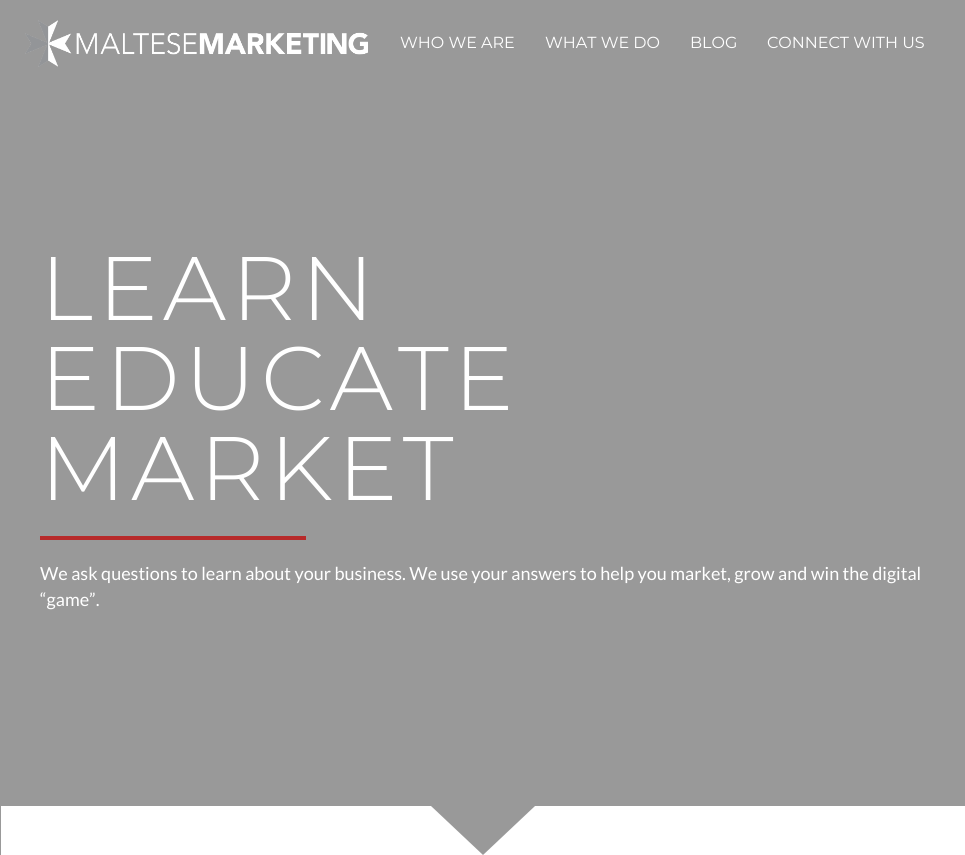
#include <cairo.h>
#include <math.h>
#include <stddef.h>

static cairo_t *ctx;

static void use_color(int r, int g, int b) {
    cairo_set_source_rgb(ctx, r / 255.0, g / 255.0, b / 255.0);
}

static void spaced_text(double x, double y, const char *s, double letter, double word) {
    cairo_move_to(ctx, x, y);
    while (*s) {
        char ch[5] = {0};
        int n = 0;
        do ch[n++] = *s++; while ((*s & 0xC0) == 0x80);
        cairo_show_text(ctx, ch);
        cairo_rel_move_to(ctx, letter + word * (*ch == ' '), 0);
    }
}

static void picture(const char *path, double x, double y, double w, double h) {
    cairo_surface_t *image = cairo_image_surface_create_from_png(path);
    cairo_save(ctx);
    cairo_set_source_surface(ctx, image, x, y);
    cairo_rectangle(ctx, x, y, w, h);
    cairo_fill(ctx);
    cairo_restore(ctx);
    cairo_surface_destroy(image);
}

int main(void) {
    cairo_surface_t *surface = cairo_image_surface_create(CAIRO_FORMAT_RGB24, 965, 855);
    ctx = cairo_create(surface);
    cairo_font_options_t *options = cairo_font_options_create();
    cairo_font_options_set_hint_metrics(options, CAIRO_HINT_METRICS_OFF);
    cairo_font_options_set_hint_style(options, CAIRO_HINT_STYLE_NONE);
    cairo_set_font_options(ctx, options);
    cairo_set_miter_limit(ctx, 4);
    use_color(153, 153, 153);
    cairo_paint(ctx);
    picture("img1.png", 25, 20, 343, 47);
    cairo_select_font_face(ctx, "Montserrat", CAIRO_FONT_SLANT_NORMAL, CAIRO_FONT_WEIGHT_NORMAL);
    cairo_set_font_size(ctx, 16);
    use_color(255, 255, 255);
    cairo_move_to(ctx, 400, 48);
    cairo_show_text(ctx, "WHO WE ARE");
    cairo_move_to(ctx, 545, 48);
    cairo_show_text(ctx, "WHAT WE DO");
    cairo_move_to(ctx, 690, 48);
    cairo_show_text(ctx, "BLOG");
    cairo_move_to(ctx, 767, 48);
    cairo_show_text(ctx, "CONNECT WITH US");
    cairo_select_font_face(ctx, "Montserrat Light", CAIRO_FONT_SLANT_NORMAL, CAIRO_FONT_WEIGHT_NORMAL);
    cairo_set_font_size(ctx, 90);
    spaced_text(40, 320, "LEARN", 5, 0);
    spaced_text(40, 410, "EDUCATE", 5, 0);
    spaced_text(40, 500, "MARKET", 5, 0);
    use_color(183, 42, 42);
    cairo_rectangle(ctx, 40, 536, 266, 4);
    cairo_fill(ctx);
    cairo_select_font_face(ctx, "Lato", CAIRO_FONT_SLANT_NORMAL, CAIRO_FONT_WEIGHT_NORMAL);
    cairo_set_font_size(ctx, 18);
    use_color(255, 255, 255);
    cairo_move_to(ctx, 40, 580);
    cairo_show_text(ctx, "We ask questions to learn about your business. We use your answers to help you market, grow and win the digital");
    cairo_move_to(ctx, 40, 606);
    cairo_show_text(ctx, "“game”.");
    cairo_save(ctx);
    cairo_rectangle(ctx, 1, 806, 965, 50);
    cairo_clip(ctx);
    cairo_new_path(ctx);
    cairo_move_to(ctx, 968, 806);
    cairo_line_to(ctx, 535, 806);
    cairo_line_to(ctx, 483, 855);
    cairo_line_to(ctx, 431, 806);
    cairo_line_to(ctx, -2, 806);
    cairo_line_to(ctx, -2, 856);
    cairo_line_to(ctx, 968, 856);
    cairo_close_path(ctx);
    cairo_fill(ctx);
    cairo_restore(ctx);
    cairo_surface_write_to_png(surface, "result.png");
    cairo_font_options_destroy(options);
    cairo_destroy(ctx);
    cairo_surface_destroy(surface);
    return 0;
}
